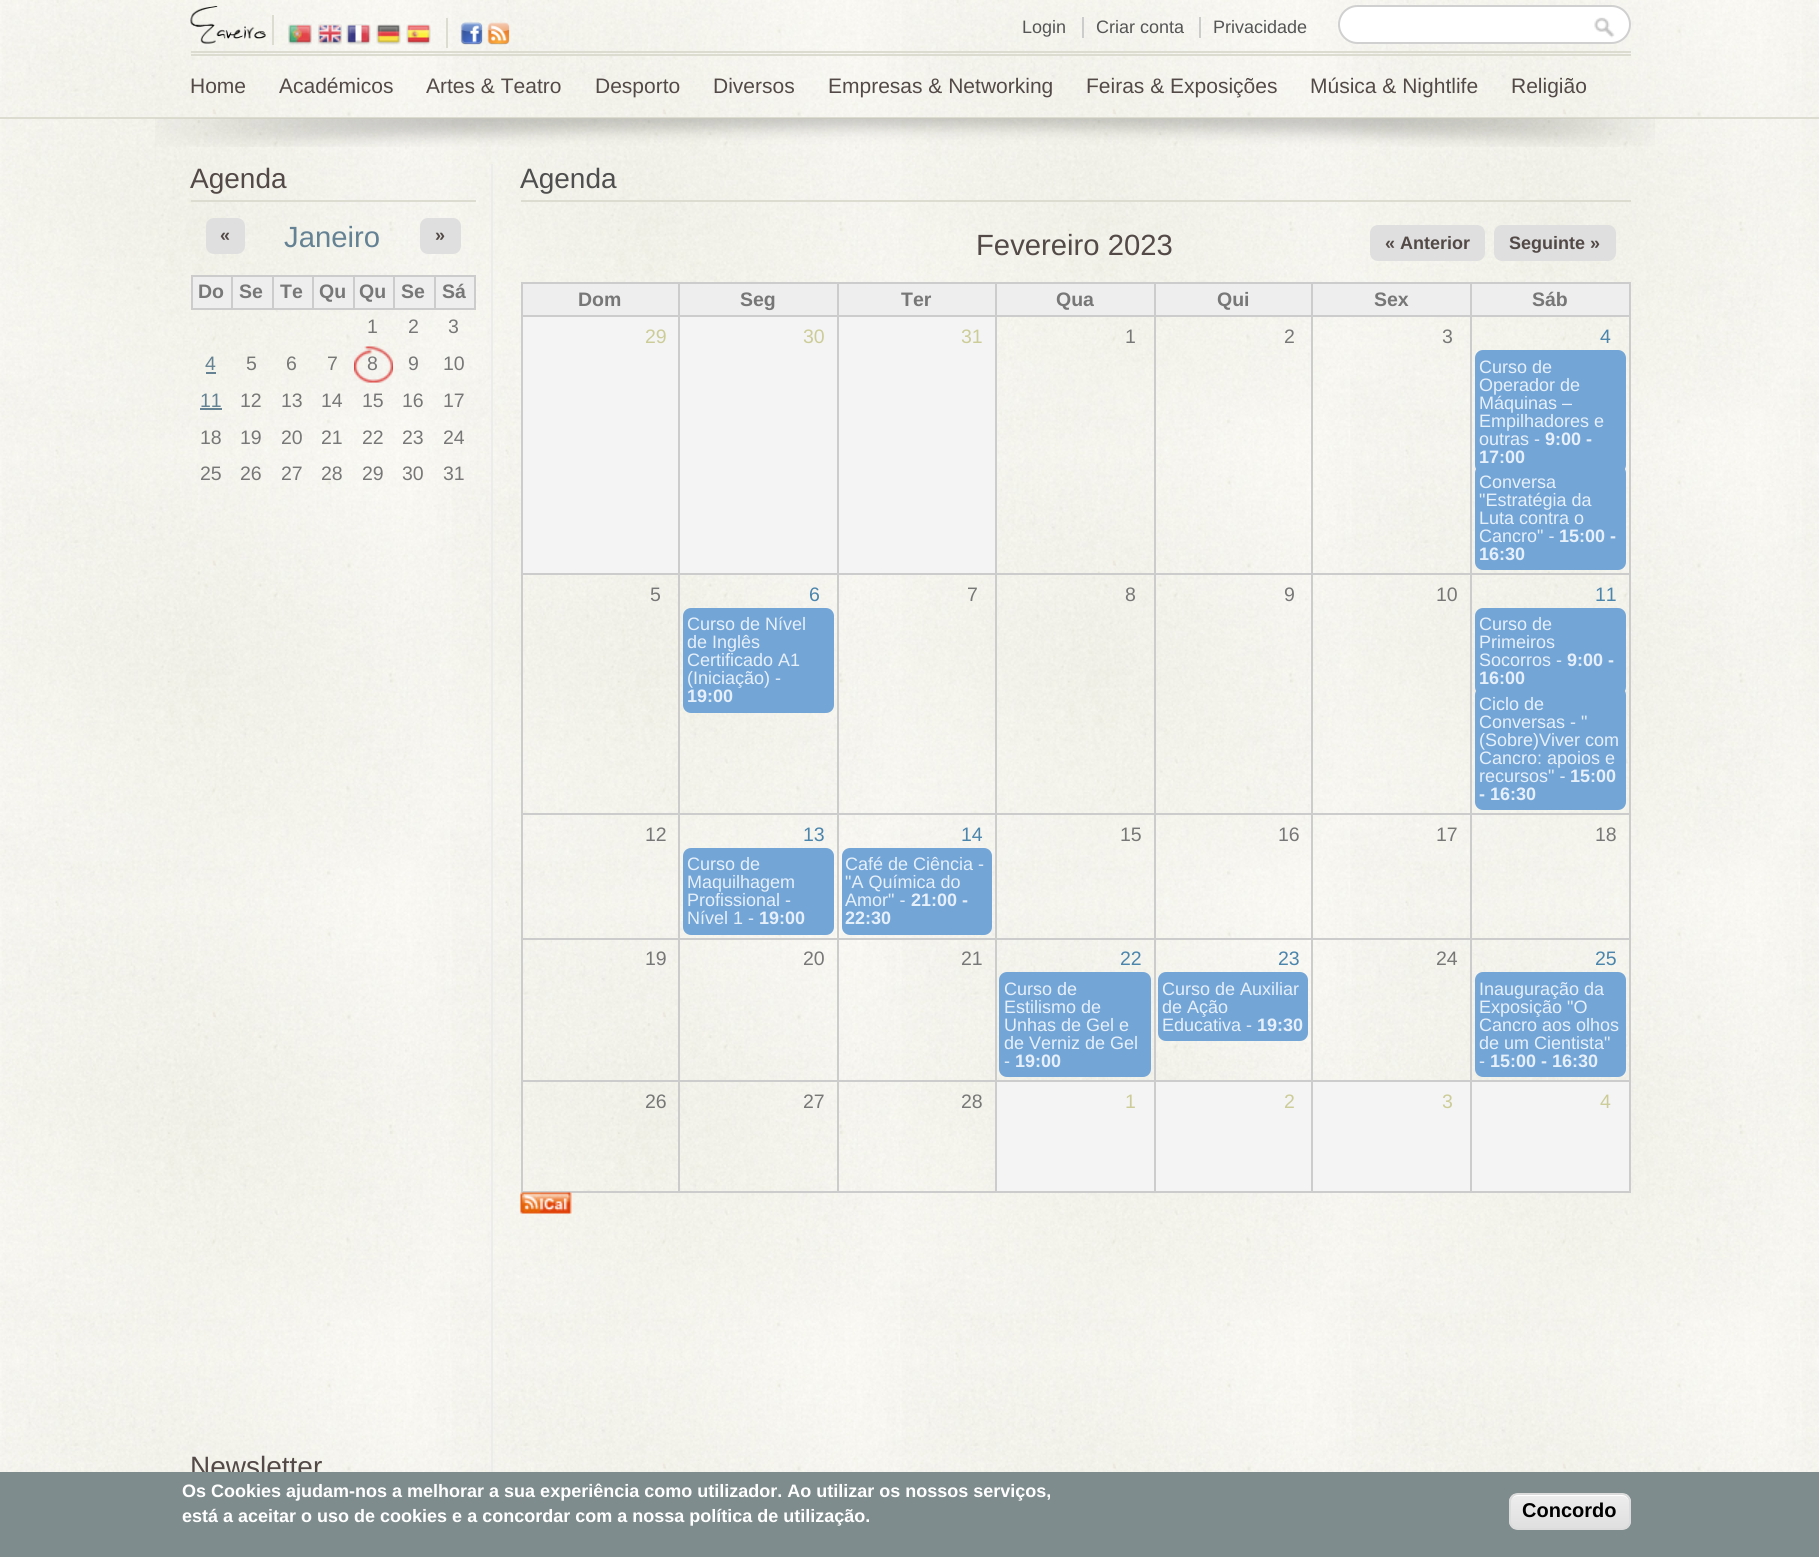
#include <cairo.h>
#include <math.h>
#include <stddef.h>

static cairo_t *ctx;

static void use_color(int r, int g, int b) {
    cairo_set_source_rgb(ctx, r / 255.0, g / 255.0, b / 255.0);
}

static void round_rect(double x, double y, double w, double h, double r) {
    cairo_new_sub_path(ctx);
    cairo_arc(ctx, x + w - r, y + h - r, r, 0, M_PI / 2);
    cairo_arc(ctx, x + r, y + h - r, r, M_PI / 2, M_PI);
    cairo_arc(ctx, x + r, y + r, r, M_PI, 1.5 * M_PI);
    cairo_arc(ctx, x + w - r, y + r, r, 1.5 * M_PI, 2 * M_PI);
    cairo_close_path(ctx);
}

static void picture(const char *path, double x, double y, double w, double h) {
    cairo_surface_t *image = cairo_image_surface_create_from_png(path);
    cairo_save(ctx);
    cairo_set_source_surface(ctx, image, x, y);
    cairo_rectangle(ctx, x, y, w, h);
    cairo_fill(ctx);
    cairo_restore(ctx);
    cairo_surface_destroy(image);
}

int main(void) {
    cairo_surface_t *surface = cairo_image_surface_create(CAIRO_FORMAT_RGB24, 1819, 1557);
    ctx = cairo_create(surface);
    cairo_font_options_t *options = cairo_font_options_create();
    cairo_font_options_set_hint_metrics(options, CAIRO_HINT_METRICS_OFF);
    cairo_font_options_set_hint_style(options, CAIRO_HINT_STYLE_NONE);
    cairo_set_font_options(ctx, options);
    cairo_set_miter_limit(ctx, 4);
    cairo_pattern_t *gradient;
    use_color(255, 255, 255);
    cairo_paint(ctx);
    picture("img1.png", 0, 0, 1819, 1472);
    use_color(220, 220, 209);
    cairo_rectangle(ctx, 191, 51, 1440, 2);
    cairo_fill(ctx);
    picture("img2.png", 190, 6, 76, 38);
    cairo_rectangle(ctx, 272, 15, 2, 30);
    cairo_fill(ctx);
    picture("img3.png", 288, 24, 24, 21);
    picture("img4.png", 318, 24, 24, 21);
    picture("img5.png", 346, 24, 25, 21);
    picture("img6.png", 376, 24, 25, 21);
    picture("img7.png", 406, 24, 25, 21);
    cairo_rectangle(ctx, 446, 18, 2, 30);
    cairo_fill(ctx);
    picture("img8.png", 460, 22, 23, 23);
    picture("img9.png", 487, 22, 23, 23);
    cairo_select_font_face(ctx, "Liberation Sans", CAIRO_FONT_SLANT_NORMAL, CAIRO_FONT_WEIGHT_NORMAL);
    cairo_set_font_size(ctx, 18);
    use_color(85, 85, 85);
    cairo_move_to(ctx, 1022, 33);
    cairo_show_text(ctx, "Login");
    use_color(204, 204, 204);
    cairo_rectangle(ctx, 1082, 17, 2, 21);
    cairo_fill(ctx);
    use_color(85, 85, 85);
    cairo_move_to(ctx, 1096, 33);
    cairo_show_text(ctx, "Criar conta");
    use_color(204, 204, 204);
    cairo_rectangle(ctx, 1199, 17, 2, 21);
    cairo_fill(ctx);
    use_color(85, 85, 85);
    cairo_move_to(ctx, 1213, 33);
    cairo_show_text(ctx, "Privacidade");
    use_color(255, 255, 255);
    round_rect(1339, 6, 291, 37, 18.5);
    cairo_fill_preserve(ctx);
    use_color(208, 208, 208);
    cairo_stroke(ctx);
    picture("img10.png", 1594, 17, 21, 21);
    use_color(220, 220, 209);
    cairo_rectangle(ctx, 0, 117, 1819, 2);
    cairo_fill(ctx);
    cairo_rectangle(ctx, 191, 54, 1440, 2);
    cairo_fill(ctx);
    cairo_set_font_size(ctx, 21);
    use_color(83, 74, 71);
    cairo_move_to(ctx, 190, 93);
    cairo_show_text(ctx, "Home");
    cairo_move_to(ctx, 279, 93);
    cairo_show_text(ctx, "Académicos");
    cairo_move_to(ctx, 426, 93);
    cairo_show_text(ctx, "Artes & Teatro");
    cairo_move_to(ctx, 595, 93);
    cairo_show_text(ctx, "Desporto");
    cairo_move_to(ctx, 713, 93);
    cairo_show_text(ctx, "Diversos");
    cairo_move_to(ctx, 828, 93);
    cairo_show_text(ctx, "Empresas & Networking");
    cairo_move_to(ctx, 1086, 93);
    cairo_show_text(ctx, "Feiras & Exposições");
    cairo_move_to(ctx, 1310, 93);
    cairo_show_text(ctx, "Música & Nightlife");
    cairo_move_to(ctx, 1511, 93);
    cairo_show_text(ctx, "Religião");
    picture("img11.png", 155, 118, 1500, 29);
    use_color(236, 236, 236);
    cairo_rectangle(ctx, 491, 164, 2, 1308);
    cairo_fill(ctx);
    use_color(220, 220, 209);
    cairo_rectangle(ctx, 191, 200, 285, 2);
    cairo_fill(ctx);
    cairo_set_font_size(ctx, 28);
    use_color(83, 74, 71);
    cairo_move_to(ctx, 190, 188);
    cairo_show_text(ctx, "Agenda");
    cairo_set_font_size(ctx, 29.25);
    use_color(100, 130, 147);
    cairo_move_to(ctx, 284, 247);
    cairo_show_text(ctx, "Janeiro");
    use_color(223, 223, 223);
    round_rect(206, 218, 39, 36, 8);
    cairo_fill(ctx);
    cairo_select_font_face(ctx, "Liberation Sans", CAIRO_FONT_SLANT_NORMAL, CAIRO_FONT_WEIGHT_BOLD);
    cairo_set_font_size(ctx, 18);
    use_color(83, 74, 71);
    cairo_move_to(ctx, 220, 241);
    cairo_show_text(ctx, "«");
    use_color(223, 223, 223);
    round_rect(420, 218, 41, 36, 8);
    cairo_fill(ctx);
    use_color(83, 74, 71);
    cairo_move_to(ctx, 435, 241);
    cairo_show_text(ctx, "»");
    use_color(238, 238, 238);
    cairo_rectangle(ctx, 193, 277, 38, 31);
    cairo_fill(ctx);
    use_color(204, 204, 204);
    cairo_rectangle(ctx, 434, 275, 42, 2);
    cairo_fill(ctx);
    cairo_rectangle(ctx, 474, 275, 2, 34);
    cairo_fill(ctx);
    cairo_rectangle(ctx, 434, 308, 42, 2);
    cairo_fill(ctx);
    cairo_rectangle(ctx, 434, 275, 2, 34);
    cairo_fill(ctx);
    cairo_rectangle(ctx, 393, 275, 42, 2);
    cairo_fill(ctx);
    cairo_rectangle(ctx, 393, 308, 42, 2);
    cairo_fill(ctx);
    cairo_rectangle(ctx, 393, 275, 2, 34);
    cairo_fill(ctx);
    cairo_rectangle(ctx, 353, 275, 42, 2);
    cairo_fill(ctx);
    cairo_rectangle(ctx, 353, 308, 42, 2);
    cairo_fill(ctx);
    cairo_rectangle(ctx, 353, 275, 2, 34);
    cairo_fill(ctx);
    cairo_rectangle(ctx, 312, 275, 42, 2);
    cairo_fill(ctx);
    cairo_rectangle(ctx, 312, 308, 42, 2);
    cairo_fill(ctx);
    cairo_rectangle(ctx, 312, 275, 2, 34);
    cairo_fill(ctx);
    cairo_rectangle(ctx, 272, 275, 42, 2);
    cairo_fill(ctx);
    cairo_rectangle(ctx, 272, 308, 42, 2);
    cairo_fill(ctx);
    cairo_rectangle(ctx, 272, 275, 2, 34);
    cairo_fill(ctx);
    cairo_rectangle(ctx, 231, 275, 42, 2);
    cairo_fill(ctx);
    cairo_rectangle(ctx, 231, 308, 42, 2);
    cairo_fill(ctx);
    cairo_rectangle(ctx, 231, 275, 2, 34);
    cairo_fill(ctx);
    cairo_rectangle(ctx, 191, 275, 42, 2);
    cairo_fill(ctx);
    cairo_rectangle(ctx, 191, 308, 42, 2);
    cairo_fill(ctx);
    cairo_rectangle(ctx, 191, 275, 2, 34);
    cairo_fill(ctx);
    cairo_set_font_size(ctx, 19.5);
    use_color(119, 119, 119);
    cairo_move_to(ctx, 198, 298);
    cairo_show_text(ctx, "Do");
    use_color(238, 238, 238);
    cairo_rectangle(ctx, 233, 277, 39, 31);
    cairo_fill(ctx);
    use_color(119, 119, 119);
    cairo_move_to(ctx, 239, 298);
    cairo_show_text(ctx, "Se");
    use_color(238, 238, 238);
    cairo_rectangle(ctx, 274, 277, 38, 31);
    cairo_fill(ctx);
    use_color(119, 119, 119);
    cairo_move_to(ctx, 280, 298);
    cairo_show_text(ctx, "Te");
    use_color(238, 238, 238);
    cairo_rectangle(ctx, 314, 277, 39, 31);
    cairo_fill(ctx);
    use_color(119, 119, 119);
    cairo_move_to(ctx, 319, 298);
    cairo_show_text(ctx, "Qu");
    use_color(238, 238, 238);
    cairo_rectangle(ctx, 355, 277, 38, 31);
    cairo_fill(ctx);
    use_color(119, 119, 119);
    cairo_move_to(ctx, 359, 298);
    cairo_show_text(ctx, "Qu");
    use_color(238, 238, 238);
    cairo_rectangle(ctx, 395, 277, 39, 31);
    cairo_fill(ctx);
    use_color(119, 119, 119);
    cairo_move_to(ctx, 401, 298);
    cairo_show_text(ctx, "Se");
    use_color(238, 238, 238);
    cairo_rectangle(ctx, 436, 277, 38, 31);
    cairo_fill(ctx);
    use_color(119, 119, 119);
    cairo_move_to(ctx, 442, 298);
    cairo_show_text(ctx, "Sá");
    cairo_select_font_face(ctx, "Liberation Sans", CAIRO_FONT_SLANT_NORMAL, CAIRO_FONT_WEIGHT_NORMAL);
    cairo_move_to(ctx, 367, 333);
    cairo_show_text(ctx, "1");
    cairo_move_to(ctx, 408, 333);
    cairo_show_text(ctx, "2");
    cairo_move_to(ctx, 448, 333);
    cairo_show_text(ctx, "3");
    use_color(100, 130, 147);
    cairo_move_to(ctx, 205, 370);
    cairo_show_text(ctx, "4");
    cairo_rectangle(ctx, 206, 372, 10, 2);
    cairo_fill(ctx);
    use_color(119, 119, 119);
    cairo_move_to(ctx, 246, 370);
    cairo_show_text(ctx, "5");
    cairo_move_to(ctx, 286, 370);
    cairo_show_text(ctx, "6");
    cairo_move_to(ctx, 327, 370);
    cairo_show_text(ctx, "7");
    picture("img12.png", 354, 346, 39, 37);
    cairo_move_to(ctx, 367, 370);
    cairo_show_text(ctx, "8");
    cairo_move_to(ctx, 408, 370);
    cairo_show_text(ctx, "9");
    cairo_move_to(ctx, 443, 370);
    cairo_show_text(ctx, "10");
    use_color(100, 130, 147);
    cairo_move_to(ctx, 200, 407);
    cairo_show_text(ctx, "11");
    cairo_rectangle(ctx, 200, 408, 22, 2);
    cairo_fill(ctx);
    use_color(119, 119, 119);
    cairo_move_to(ctx, 240, 407);
    cairo_show_text(ctx, "12");
    cairo_move_to(ctx, 281, 407);
    cairo_show_text(ctx, "13");
    cairo_move_to(ctx, 321, 407);
    cairo_show_text(ctx, "14");
    cairo_move_to(ctx, 362, 407);
    cairo_show_text(ctx, "15");
    cairo_move_to(ctx, 402, 407);
    cairo_show_text(ctx, "16");
    cairo_move_to(ctx, 443, 407);
    cairo_show_text(ctx, "17");
    cairo_move_to(ctx, 200, 444);
    cairo_show_text(ctx, "18");
    cairo_move_to(ctx, 240, 444);
    cairo_show_text(ctx, "19");
    cairo_move_to(ctx, 281, 444);
    cairo_show_text(ctx, "20");
    cairo_move_to(ctx, 321, 444);
    cairo_show_text(ctx, "21");
    cairo_move_to(ctx, 362, 444);
    cairo_show_text(ctx, "22");
    cairo_move_to(ctx, 402, 444);
    cairo_show_text(ctx, "23");
    cairo_move_to(ctx, 443, 444);
    cairo_show_text(ctx, "24");
    cairo_move_to(ctx, 200, 480);
    cairo_show_text(ctx, "25");
    cairo_move_to(ctx, 240, 480);
    cairo_show_text(ctx, "26");
    cairo_move_to(ctx, 281, 480);
    cairo_show_text(ctx, "27");
    cairo_move_to(ctx, 321, 480);
    cairo_show_text(ctx, "28");
    cairo_move_to(ctx, 362, 480);
    cairo_show_text(ctx, "29");
    cairo_move_to(ctx, 402, 480);
    cairo_show_text(ctx, "30");
    cairo_move_to(ctx, 443, 480);
    cairo_show_text(ctx, "31");
    cairo_set_font_size(ctx, 28);
    use_color(83, 74, 71);
    cairo_move_to(ctx, 190, 1476);
    cairo_show_text(ctx, "Newsletter");
    use_color(220, 220, 209);
    cairo_rectangle(ctx, 521, 200, 1110, 2);
    cairo_fill(ctx);
    use_color(79, 79, 79);
    cairo_move_to(ctx, 520, 188);
    cairo_show_text(ctx, "Agenda");
    cairo_set_font_size(ctx, 29.25);
    use_color(83, 74, 71);
    cairo_move_to(ctx, 976, 255);
    cairo_show_text(ctx, "Fevereiro 2023");
    use_color(223, 223, 223);
    round_rect(1370, 225, 115, 36, 8);
    cairo_fill(ctx);
    cairo_select_font_face(ctx, "Liberation Sans", CAIRO_FONT_SLANT_NORMAL, CAIRO_FONT_WEIGHT_BOLD);
    cairo_set_font_size(ctx, 18);
    use_color(83, 74, 71);
    cairo_move_to(ctx, 1385, 249);
    cairo_show_text(ctx, "« Anterior");
    use_color(223, 223, 223);
    round_rect(1494, 225, 122, 36, 8);
    cairo_fill(ctx);
    use_color(83, 74, 71);
    cairo_move_to(ctx, 1509, 249);
    cairo_show_text(ctx, "Seguinte »");
    use_color(238, 238, 238);
    cairo_rectangle(ctx, 523, 284, 155, 31);
    cairo_fill(ctx);
    use_color(204, 204, 204);
    cairo_rectangle(ctx, 1470, 282, 161, 2);
    cairo_fill(ctx);
    cairo_rectangle(ctx, 1470, 315, 161, 2);
    cairo_fill(ctx);
    cairo_rectangle(ctx, 1470, 573, 161, 2);
    cairo_fill(ctx);
    cairo_rectangle(ctx, 1470, 813, 161, 2);
    cairo_fill(ctx);
    cairo_rectangle(ctx, 1470, 938, 161, 2);
    cairo_fill(ctx);
    cairo_rectangle(ctx, 1470, 1080, 161, 2);
    cairo_fill(ctx);
    cairo_rectangle(ctx, 1629, 1118, 2, 75);
    cairo_fill(ctx);
    cairo_rectangle(ctx, 1470, 1191, 161, 2);
    cairo_fill(ctx);
    cairo_rectangle(ctx, 1470, 1118, 2, 75);
    cairo_fill(ctx);
    cairo_rectangle(ctx, 1470, 1080, 2, 39);
    cairo_fill(ctx);
    cairo_rectangle(ctx, 1311, 1080, 161, 2);
    cairo_fill(ctx);
    cairo_rectangle(ctx, 1470, 977, 2, 105);
    cairo_fill(ctx);
    cairo_rectangle(ctx, 1470, 938, 2, 40);
    cairo_fill(ctx);
    cairo_rectangle(ctx, 1311, 938, 161, 2);
    cairo_fill(ctx);
    cairo_rectangle(ctx, 1470, 852, 2, 87);
    cairo_fill(ctx);
    cairo_rectangle(ctx, 1470, 813, 2, 41);
    cairo_fill(ctx);
    cairo_rectangle(ctx, 1311, 813, 161, 2);
    cairo_fill(ctx);
    cairo_rectangle(ctx, 1470, 612, 2, 203);
    cairo_fill(ctx);
    cairo_rectangle(ctx, 1470, 573, 2, 41);
    cairo_fill(ctx);
    cairo_rectangle(ctx, 1311, 573, 161, 2);
    cairo_fill(ctx);
    cairo_rectangle(ctx, 1470, 354, 2, 221);
    cairo_fill(ctx);
    cairo_rectangle(ctx, 1470, 315, 2, 41);
    cairo_fill(ctx);
    cairo_rectangle(ctx, 1311, 315, 161, 2);
    cairo_fill(ctx);
    cairo_rectangle(ctx, 1470, 282, 2, 35);
    cairo_fill(ctx);
    cairo_rectangle(ctx, 1311, 282, 161, 2);
    cairo_fill(ctx);
    cairo_rectangle(ctx, 1311, 1191, 161, 2);
    cairo_fill(ctx);
    cairo_rectangle(ctx, 1311, 1118, 2, 75);
    cairo_fill(ctx);
    cairo_rectangle(ctx, 1311, 1080, 2, 39);
    cairo_fill(ctx);
    cairo_rectangle(ctx, 1154, 1080, 159, 2);
    cairo_fill(ctx);
    cairo_rectangle(ctx, 1311, 977, 2, 105);
    cairo_fill(ctx);
    cairo_rectangle(ctx, 1311, 938, 2, 40);
    cairo_fill(ctx);
    cairo_rectangle(ctx, 1154, 938, 159, 2);
    cairo_fill(ctx);
    cairo_rectangle(ctx, 1311, 852, 2, 87);
    cairo_fill(ctx);
    cairo_rectangle(ctx, 1311, 813, 2, 41);
    cairo_fill(ctx);
    cairo_rectangle(ctx, 1154, 813, 159, 2);
    cairo_fill(ctx);
    cairo_rectangle(ctx, 1311, 612, 2, 203);
    cairo_fill(ctx);
    cairo_rectangle(ctx, 1311, 573, 2, 41);
    cairo_fill(ctx);
    cairo_rectangle(ctx, 1154, 573, 159, 2);
    cairo_fill(ctx);
    cairo_rectangle(ctx, 1311, 354, 2, 221);
    cairo_fill(ctx);
    cairo_rectangle(ctx, 1311, 315, 2, 41);
    cairo_fill(ctx);
    cairo_rectangle(ctx, 1154, 315, 159, 2);
    cairo_fill(ctx);
    cairo_rectangle(ctx, 1311, 282, 2, 35);
    cairo_fill(ctx);
    cairo_rectangle(ctx, 1154, 282, 159, 2);
    cairo_fill(ctx);
    cairo_rectangle(ctx, 1154, 1191, 159, 2);
    cairo_fill(ctx);
    cairo_rectangle(ctx, 1154, 1118, 2, 75);
    cairo_fill(ctx);
    cairo_rectangle(ctx, 1154, 1080, 2, 39);
    cairo_fill(ctx);
    cairo_rectangle(ctx, 995, 1080, 160, 2);
    cairo_fill(ctx);
    cairo_rectangle(ctx, 1154, 977, 2, 105);
    cairo_fill(ctx);
    cairo_rectangle(ctx, 1154, 938, 2, 40);
    cairo_fill(ctx);
    cairo_rectangle(ctx, 995, 938, 160, 2);
    cairo_fill(ctx);
    cairo_rectangle(ctx, 1154, 852, 2, 87);
    cairo_fill(ctx);
    cairo_rectangle(ctx, 1154, 813, 2, 41);
    cairo_fill(ctx);
    cairo_rectangle(ctx, 995, 813, 160, 2);
    cairo_fill(ctx);
    cairo_rectangle(ctx, 1154, 612, 2, 203);
    cairo_fill(ctx);
    cairo_rectangle(ctx, 1154, 573, 2, 41);
    cairo_fill(ctx);
    cairo_rectangle(ctx, 995, 573, 160, 2);
    cairo_fill(ctx);
    cairo_rectangle(ctx, 1154, 354, 2, 221);
    cairo_fill(ctx);
    cairo_rectangle(ctx, 1154, 315, 2, 41);
    cairo_fill(ctx);
    cairo_rectangle(ctx, 995, 315, 160, 2);
    cairo_fill(ctx);
    cairo_rectangle(ctx, 1154, 282, 2, 35);
    cairo_fill(ctx);
    cairo_rectangle(ctx, 995, 282, 160, 2);
    cairo_fill(ctx);
    cairo_rectangle(ctx, 995, 1191, 160, 2);
    cairo_fill(ctx);
    cairo_rectangle(ctx, 995, 1118, 2, 75);
    cairo_fill(ctx);
    cairo_rectangle(ctx, 995, 1080, 2, 39);
    cairo_fill(ctx);
    cairo_rectangle(ctx, 837, 1080, 159, 2);
    cairo_fill(ctx);
    cairo_rectangle(ctx, 995, 977, 2, 105);
    cairo_fill(ctx);
    cairo_rectangle(ctx, 995, 938, 2, 40);
    cairo_fill(ctx);
    cairo_rectangle(ctx, 837, 938, 159, 2);
    cairo_fill(ctx);
    cairo_rectangle(ctx, 995, 852, 2, 87);
    cairo_fill(ctx);
    cairo_rectangle(ctx, 995, 813, 2, 41);
    cairo_fill(ctx);
    cairo_rectangle(ctx, 837, 813, 159, 2);
    cairo_fill(ctx);
    cairo_rectangle(ctx, 995, 612, 2, 203);
    cairo_fill(ctx);
    cairo_rectangle(ctx, 995, 573, 2, 41);
    cairo_fill(ctx);
    cairo_rectangle(ctx, 837, 573, 159, 2);
    cairo_fill(ctx);
    cairo_rectangle(ctx, 995, 354, 2, 221);
    cairo_fill(ctx);
    cairo_rectangle(ctx, 995, 315, 2, 41);
    cairo_fill(ctx);
    cairo_rectangle(ctx, 837, 315, 159, 2);
    cairo_fill(ctx);
    cairo_rectangle(ctx, 995, 282, 2, 35);
    cairo_fill(ctx);
    cairo_rectangle(ctx, 837, 282, 159, 2);
    cairo_fill(ctx);
    cairo_rectangle(ctx, 837, 1191, 159, 2);
    cairo_fill(ctx);
    cairo_rectangle(ctx, 837, 1118, 2, 75);
    cairo_fill(ctx);
    cairo_rectangle(ctx, 837, 1080, 2, 39);
    cairo_fill(ctx);
    cairo_rectangle(ctx, 678, 1080, 161, 2);
    cairo_fill(ctx);
    cairo_rectangle(ctx, 837, 977, 2, 105);
    cairo_fill(ctx);
    cairo_rectangle(ctx, 837, 938, 2, 40);
    cairo_fill(ctx);
    cairo_rectangle(ctx, 678, 938, 161, 2);
    cairo_fill(ctx);
    cairo_rectangle(ctx, 837, 852, 2, 87);
    cairo_fill(ctx);
    cairo_rectangle(ctx, 837, 813, 2, 41);
    cairo_fill(ctx);
    cairo_rectangle(ctx, 678, 813, 161, 2);
    cairo_fill(ctx);
    cairo_rectangle(ctx, 837, 612, 2, 203);
    cairo_fill(ctx);
    cairo_rectangle(ctx, 837, 573, 2, 41);
    cairo_fill(ctx);
    cairo_rectangle(ctx, 678, 573, 161, 2);
    cairo_fill(ctx);
    cairo_rectangle(ctx, 837, 354, 2, 221);
    cairo_fill(ctx);
    cairo_rectangle(ctx, 837, 315, 2, 41);
    cairo_fill(ctx);
    cairo_rectangle(ctx, 678, 315, 161, 2);
    cairo_fill(ctx);
    cairo_rectangle(ctx, 837, 282, 2, 35);
    cairo_fill(ctx);
    cairo_rectangle(ctx, 678, 282, 161, 2);
    cairo_fill(ctx);
    cairo_rectangle(ctx, 678, 1191, 161, 2);
    cairo_fill(ctx);
    cairo_rectangle(ctx, 678, 1118, 2, 75);
    cairo_fill(ctx);
    cairo_rectangle(ctx, 678, 1080, 2, 39);
    cairo_fill(ctx);
    cairo_rectangle(ctx, 521, 1080, 159, 2);
    cairo_fill(ctx);
    cairo_rectangle(ctx, 678, 977, 2, 105);
    cairo_fill(ctx);
    cairo_rectangle(ctx, 678, 938, 2, 40);
    cairo_fill(ctx);
    cairo_rectangle(ctx, 521, 938, 159, 2);
    cairo_fill(ctx);
    cairo_rectangle(ctx, 678, 852, 2, 87);
    cairo_fill(ctx);
    cairo_rectangle(ctx, 678, 813, 2, 41);
    cairo_fill(ctx);
    cairo_rectangle(ctx, 521, 813, 159, 2);
    cairo_fill(ctx);
    cairo_rectangle(ctx, 678, 612, 2, 203);
    cairo_fill(ctx);
    cairo_rectangle(ctx, 678, 573, 2, 41);
    cairo_fill(ctx);
    cairo_rectangle(ctx, 521, 573, 159, 2);
    cairo_fill(ctx);
    cairo_rectangle(ctx, 678, 354, 2, 221);
    cairo_fill(ctx);
    cairo_rectangle(ctx, 678, 315, 2, 41);
    cairo_fill(ctx);
    cairo_rectangle(ctx, 521, 315, 159, 2);
    cairo_fill(ctx);
    cairo_rectangle(ctx, 678, 282, 2, 35);
    cairo_fill(ctx);
    cairo_rectangle(ctx, 521, 282, 159, 2);
    cairo_fill(ctx);
    cairo_rectangle(ctx, 521, 1191, 159, 2);
    cairo_fill(ctx);
    cairo_rectangle(ctx, 521, 1118, 2, 75);
    cairo_fill(ctx);
    cairo_rectangle(ctx, 521, 977, 2, 142);
    cairo_fill(ctx);
    cairo_rectangle(ctx, 521, 852, 2, 126);
    cairo_fill(ctx);
    cairo_rectangle(ctx, 521, 612, 2, 242);
    cairo_fill(ctx);
    cairo_rectangle(ctx, 521, 354, 2, 260);
    cairo_fill(ctx);
    cairo_rectangle(ctx, 521, 315, 2, 41);
    cairo_fill(ctx);
    cairo_rectangle(ctx, 521, 282, 2, 35);
    cairo_fill(ctx);
    cairo_set_font_size(ctx, 19.5);
    use_color(119, 119, 119);
    cairo_move_to(ctx, 578, 306);
    cairo_show_text(ctx, "Dom");
    use_color(238, 238, 238);
    cairo_rectangle(ctx, 680, 284, 157, 31);
    cairo_fill(ctx);
    use_color(119, 119, 119);
    cairo_move_to(ctx, 740, 306);
    cairo_show_text(ctx, "Seg");
    use_color(238, 238, 238);
    cairo_rectangle(ctx, 839, 284, 156, 31);
    cairo_fill(ctx);
    use_color(119, 119, 119);
    cairo_move_to(ctx, 901, 306);
    cairo_show_text(ctx, "Ter");
    use_color(238, 238, 238);
    cairo_rectangle(ctx, 997, 284, 157, 31);
    cairo_fill(ctx);
    use_color(119, 119, 119);
    cairo_move_to(ctx, 1056, 306);
    cairo_show_text(ctx, "Qua");
    use_color(238, 238, 238);
    cairo_rectangle(ctx, 1156, 284, 155, 31);
    cairo_fill(ctx);
    use_color(119, 119, 119);
    cairo_move_to(ctx, 1217, 306);
    cairo_show_text(ctx, "Qui");
    use_color(238, 238, 238);
    cairo_rectangle(ctx, 1313, 284, 157, 31);
    cairo_fill(ctx);
    use_color(119, 119, 119);
    cairo_move_to(ctx, 1374, 306);
    cairo_show_text(ctx, "Sex");
    use_color(238, 238, 238);
    cairo_rectangle(ctx, 1472, 284, 157, 31);
    cairo_fill(ctx);
    use_color(204, 204, 204);
    cairo_rectangle(ctx, 1629, 977, 2, 142);
    cairo_fill(ctx);
    cairo_rectangle(ctx, 1629, 852, 2, 126);
    cairo_fill(ctx);
    cairo_rectangle(ctx, 1629, 612, 2, 242);
    cairo_fill(ctx);
    cairo_rectangle(ctx, 1629, 354, 2, 260);
    cairo_fill(ctx);
    cairo_rectangle(ctx, 1629, 315, 2, 41);
    cairo_fill(ctx);
    cairo_rectangle(ctx, 1629, 282, 2, 35);
    cairo_fill(ctx);
    use_color(119, 119, 119);
    cairo_move_to(ctx, 1532, 306);
    cairo_show_text(ctx, "Sáb");
    use_color(244, 244, 244);
    cairo_rectangle(ctx, 523, 317, 155, 256);
    cairo_fill(ctx);
    cairo_select_font_face(ctx, "Liberation Sans", CAIRO_FONT_SLANT_NORMAL, CAIRO_FONT_WEIGHT_NORMAL);
    use_color(204, 204, 153);
    cairo_move_to(ctx, 645, 343);
    cairo_show_text(ctx, "29");
    use_color(244, 244, 244);
    cairo_rectangle(ctx, 680, 317, 157, 256);
    cairo_fill(ctx);
    use_color(204, 204, 153);
    cairo_move_to(ctx, 803, 343);
    cairo_show_text(ctx, "30");
    use_color(244, 244, 244);
    cairo_rectangle(ctx, 839, 317, 156, 256);
    cairo_fill(ctx);
    use_color(204, 204, 153);
    cairo_move_to(ctx, 961, 343);
    cairo_show_text(ctx, "31");
    use_color(119, 119, 119);
    cairo_move_to(ctx, 1125, 343);
    cairo_show_text(ctx, "1");
    cairo_move_to(ctx, 1284, 343);
    cairo_show_text(ctx, "2");
    cairo_move_to(ctx, 1442, 343);
    cairo_show_text(ctx, "3");
    use_color(75, 133, 172);
    cairo_move_to(ctx, 1600, 343);
    cairo_show_text(ctx, "4");
    use_color(116, 165, 215);
    round_rect(1475, 350, 151, 123, 8);
    cairo_fill(ctx);
    cairo_set_font_size(ctx, 18);
    use_color(230, 240, 250);
    cairo_move_to(ctx, 1479, 373);
    cairo_show_text(ctx, "Curso de");
    cairo_move_to(ctx, 1479, 391);
    cairo_show_text(ctx, "Operador de");
    cairo_move_to(ctx, 1479, 409);
    cairo_show_text(ctx, "Máquinas –");
    cairo_move_to(ctx, 1479, 427);
    cairo_show_text(ctx, "Empilhadores e");
    cairo_move_to(ctx, 1479, 445);
    cairo_show_text(ctx, "outras -");
    cairo_select_font_face(ctx, "Liberation Sans", CAIRO_FONT_SLANT_NORMAL, CAIRO_FONT_WEIGHT_BOLD);
    cairo_move_to(ctx, 1545, 445);
    cairo_show_text(ctx, "9:00 -");
    cairo_move_to(ctx, 1479, 463);
    cairo_show_text(ctx, "17:00");
    use_color(116, 165, 215);
    round_rect(1475, 465, 151, 105, 8);
    cairo_fill(ctx);
    cairo_select_font_face(ctx, "Liberation Sans", CAIRO_FONT_SLANT_NORMAL, CAIRO_FONT_WEIGHT_NORMAL);
    use_color(230, 240, 250);
    cairo_move_to(ctx, 1479, 488);
    cairo_show_text(ctx, "Conversa");
    cairo_move_to(ctx, 1479, 506);
    cairo_show_text(ctx, "\"Estratégia da");
    cairo_move_to(ctx, 1479, 524);
    cairo_show_text(ctx, "Luta contra o");
    cairo_move_to(ctx, 1479, 542);
    cairo_show_text(ctx, "Cancro\" -");
    cairo_select_font_face(ctx, "Liberation Sans", CAIRO_FONT_SLANT_NORMAL, CAIRO_FONT_WEIGHT_BOLD);
    cairo_move_to(ctx, 1559, 542);
    cairo_show_text(ctx, "15:00 -");
    cairo_move_to(ctx, 1479, 560);
    cairo_show_text(ctx, "16:30");
    cairo_select_font_face(ctx, "Liberation Sans", CAIRO_FONT_SLANT_NORMAL, CAIRO_FONT_WEIGHT_NORMAL);
    cairo_set_font_size(ctx, 19.5);
    use_color(119, 119, 119);
    cairo_move_to(ctx, 650, 601);
    cairo_show_text(ctx, "5");
    use_color(75, 133, 172);
    cairo_move_to(ctx, 809, 601);
    cairo_show_text(ctx, "6");
    use_color(119, 119, 119);
    cairo_move_to(ctx, 967, 601);
    cairo_show_text(ctx, "7");
    cairo_move_to(ctx, 1125, 601);
    cairo_show_text(ctx, "8");
    cairo_move_to(ctx, 1284, 601);
    cairo_show_text(ctx, "9");
    cairo_move_to(ctx, 1436, 601);
    cairo_show_text(ctx, "10");
    use_color(75, 133, 172);
    cairo_move_to(ctx, 1595, 601);
    cairo_show_text(ctx, "11");
    use_color(116, 165, 215);
    round_rect(683, 608, 151, 105, 8);
    cairo_fill(ctx);
    cairo_set_font_size(ctx, 18);
    use_color(230, 240, 250);
    cairo_move_to(ctx, 687, 630);
    cairo_show_text(ctx, "Curso de Nível");
    cairo_move_to(ctx, 687, 648);
    cairo_show_text(ctx, "de Inglês");
    cairo_move_to(ctx, 687, 666);
    cairo_show_text(ctx, "Certificado A1");
    cairo_move_to(ctx, 687, 684);
    cairo_show_text(ctx, "(Iniciação) -");
    cairo_select_font_face(ctx, "Liberation Sans", CAIRO_FONT_SLANT_NORMAL, CAIRO_FONT_WEIGHT_BOLD);
    cairo_move_to(ctx, 687, 702);
    cairo_show_text(ctx, "19:00");
    use_color(116, 165, 215);
    round_rect(1475, 608, 151, 87, 8);
    cairo_fill(ctx);
    cairo_select_font_face(ctx, "Liberation Sans", CAIRO_FONT_SLANT_NORMAL, CAIRO_FONT_WEIGHT_NORMAL);
    use_color(230, 240, 250);
    cairo_move_to(ctx, 1479, 630);
    cairo_show_text(ctx, "Curso de");
    cairo_move_to(ctx, 1479, 648);
    cairo_show_text(ctx, "Primeiros");
    cairo_move_to(ctx, 1479, 666);
    cairo_show_text(ctx, "Socorros -");
    cairo_select_font_face(ctx, "Liberation Sans", CAIRO_FONT_SLANT_NORMAL, CAIRO_FONT_WEIGHT_BOLD);
    cairo_move_to(ctx, 1567, 666);
    cairo_show_text(ctx, "9:00 -");
    cairo_move_to(ctx, 1479, 684);
    cairo_show_text(ctx, "16:00");
    use_color(116, 165, 215);
    round_rect(1475, 687, 151, 123, 8);
    cairo_fill(ctx);
    cairo_select_font_face(ctx, "Liberation Sans", CAIRO_FONT_SLANT_NORMAL, CAIRO_FONT_WEIGHT_NORMAL);
    use_color(230, 240, 250);
    cairo_move_to(ctx, 1479, 710);
    cairo_show_text(ctx, "Ciclo de");
    cairo_move_to(ctx, 1479, 728);
    cairo_show_text(ctx, "Conversas - \"");
    cairo_move_to(ctx, 1479, 746);
    cairo_show_text(ctx, "(Sobre)Viver com");
    cairo_move_to(ctx, 1479, 764);
    cairo_show_text(ctx, "Cancro: apoios e");
    cairo_move_to(ctx, 1479, 782);
    cairo_show_text(ctx, "recursos\" -");
    cairo_select_font_face(ctx, "Liberation Sans", CAIRO_FONT_SLANT_NORMAL, CAIRO_FONT_WEIGHT_BOLD);
    cairo_move_to(ctx, 1570, 782);
    cairo_show_text(ctx, "15:00");
    cairo_move_to(ctx, 1479, 800);
    cairo_show_text(ctx, "- 16:30");
    cairo_select_font_face(ctx, "Liberation Sans", CAIRO_FONT_SLANT_NORMAL, CAIRO_FONT_WEIGHT_NORMAL);
    cairo_set_font_size(ctx, 19.5);
    use_color(119, 119, 119);
    cairo_move_to(ctx, 645, 841);
    cairo_show_text(ctx, "12");
    use_color(75, 133, 172);
    cairo_move_to(ctx, 803, 841);
    cairo_show_text(ctx, "13");
    cairo_move_to(ctx, 961, 841);
    cairo_show_text(ctx, "14");
    use_color(119, 119, 119);
    cairo_move_to(ctx, 1120, 841);
    cairo_show_text(ctx, "15");
    cairo_move_to(ctx, 1278, 841);
    cairo_show_text(ctx, "16");
    cairo_move_to(ctx, 1436, 841);
    cairo_show_text(ctx, "17");
    cairo_move_to(ctx, 1595, 841);
    cairo_show_text(ctx, "18");
    use_color(116, 165, 215);
    round_rect(683, 848, 151, 87, 8);
    cairo_fill(ctx);
    cairo_set_font_size(ctx, 18);
    use_color(230, 240, 250);
    cairo_move_to(ctx, 687, 870);
    cairo_show_text(ctx, "Curso de");
    cairo_move_to(ctx, 687, 888);
    cairo_show_text(ctx, "Maquilhagem");
    cairo_move_to(ctx, 687, 906);
    cairo_show_text(ctx, "Profissional -");
    cairo_move_to(ctx, 687, 924);
    cairo_show_text(ctx, "Nível 1 -");
    cairo_select_font_face(ctx, "Liberation Sans", CAIRO_FONT_SLANT_NORMAL, CAIRO_FONT_WEIGHT_BOLD);
    cairo_move_to(ctx, 759, 924);
    cairo_show_text(ctx, "19:00");
    use_color(116, 165, 215);
    round_rect(842, 848, 150, 87, 8);
    cairo_fill(ctx);
    cairo_select_font_face(ctx, "Liberation Sans", CAIRO_FONT_SLANT_NORMAL, CAIRO_FONT_WEIGHT_NORMAL);
    use_color(230, 240, 250);
    cairo_move_to(ctx, 845, 870);
    cairo_show_text(ctx, "Café de Ciência -");
    cairo_move_to(ctx, 845, 888);
    cairo_show_text(ctx, "\"A Química do");
    cairo_move_to(ctx, 845, 906);
    cairo_show_text(ctx, "Amor\" -");
    cairo_select_font_face(ctx, "Liberation Sans", CAIRO_FONT_SLANT_NORMAL, CAIRO_FONT_WEIGHT_BOLD);
    cairo_move_to(ctx, 911, 906);
    cairo_show_text(ctx, "21:00 -");
    cairo_move_to(ctx, 845, 924);
    cairo_show_text(ctx, "22:30");
    cairo_select_font_face(ctx, "Liberation Sans", CAIRO_FONT_SLANT_NORMAL, CAIRO_FONT_WEIGHT_NORMAL);
    cairo_set_font_size(ctx, 19.5);
    use_color(119, 119, 119);
    cairo_move_to(ctx, 645, 965);
    cairo_show_text(ctx, "19");
    cairo_move_to(ctx, 803, 965);
    cairo_show_text(ctx, "20");
    cairo_move_to(ctx, 961, 965);
    cairo_show_text(ctx, "21");
    use_color(75, 133, 172);
    cairo_move_to(ctx, 1120, 965);
    cairo_show_text(ctx, "22");
    cairo_move_to(ctx, 1278, 965);
    cairo_show_text(ctx, "23");
    use_color(119, 119, 119);
    cairo_move_to(ctx, 1436, 965);
    cairo_show_text(ctx, "24");
    use_color(75, 133, 172);
    cairo_move_to(ctx, 1595, 965);
    cairo_show_text(ctx, "25");
    use_color(116, 165, 215);
    round_rect(999, 972, 152, 105, 8);
    cairo_fill(ctx);
    cairo_set_font_size(ctx, 18);
    use_color(230, 240, 250);
    cairo_move_to(ctx, 1004, 995);
    cairo_show_text(ctx, "Curso de");
    cairo_move_to(ctx, 1004, 1013);
    cairo_show_text(ctx, "Estilismo de");
    cairo_move_to(ctx, 1004, 1031);
    cairo_show_text(ctx, "Unhas de Gel e");
    cairo_move_to(ctx, 1004, 1049);
    cairo_show_text(ctx, "de Verniz de Gel");
    cairo_move_to(ctx, 1004, 1067);
    cairo_show_text(ctx, "-");
    cairo_select_font_face(ctx, "Liberation Sans", CAIRO_FONT_SLANT_NORMAL, CAIRO_FONT_WEIGHT_BOLD);
    cairo_move_to(ctx, 1015, 1067);
    cairo_show_text(ctx, "19:00");
    use_color(116, 165, 215);
    round_rect(1158, 972, 150, 69, 8);
    cairo_fill(ctx);
    cairo_select_font_face(ctx, "Liberation Sans", CAIRO_FONT_SLANT_NORMAL, CAIRO_FONT_WEIGHT_NORMAL);
    use_color(230, 240, 250);
    cairo_move_to(ctx, 1162, 995);
    cairo_show_text(ctx, "Curso de Auxiliar");
    cairo_move_to(ctx, 1162, 1013);
    cairo_show_text(ctx, "de Ação");
    cairo_move_to(ctx, 1162, 1031);
    cairo_show_text(ctx, "Educativa -");
    cairo_select_font_face(ctx, "Liberation Sans", CAIRO_FONT_SLANT_NORMAL, CAIRO_FONT_WEIGHT_BOLD);
    cairo_move_to(ctx, 1257, 1031);
    cairo_show_text(ctx, "19:30");
    use_color(116, 165, 215);
    round_rect(1475, 972, 151, 105, 8);
    cairo_fill(ctx);
    cairo_select_font_face(ctx, "Liberation Sans", CAIRO_FONT_SLANT_NORMAL, CAIRO_FONT_WEIGHT_NORMAL);
    use_color(230, 240, 250);
    cairo_move_to(ctx, 1479, 995);
    cairo_show_text(ctx, "Inauguração da");
    cairo_move_to(ctx, 1479, 1013);
    cairo_show_text(ctx, "Exposição \"O");
    cairo_move_to(ctx, 1479, 1031);
    cairo_show_text(ctx, "Cancro aos olhos");
    cairo_move_to(ctx, 1479, 1049);
    cairo_show_text(ctx, "de um Cientista\"");
    cairo_move_to(ctx, 1479, 1067);
    cairo_show_text(ctx, "-");
    cairo_select_font_face(ctx, "Liberation Sans", CAIRO_FONT_SLANT_NORMAL, CAIRO_FONT_WEIGHT_BOLD);
    cairo_move_to(ctx, 1490, 1067);
    cairo_show_text(ctx, "15:00 - 16:30");
    cairo_select_font_face(ctx, "Liberation Sans", CAIRO_FONT_SLANT_NORMAL, CAIRO_FONT_WEIGHT_NORMAL);
    cairo_set_font_size(ctx, 19.5);
    use_color(119, 119, 119);
    cairo_move_to(ctx, 645, 1108);
    cairo_show_text(ctx, "26");
    cairo_move_to(ctx, 803, 1108);
    cairo_show_text(ctx, "27");
    cairo_move_to(ctx, 961, 1108);
    cairo_show_text(ctx, "28");
    use_color(244, 244, 244);
    cairo_rectangle(ctx, 997, 1082, 157, 109);
    cairo_fill(ctx);
    use_color(204, 204, 153);
    cairo_move_to(ctx, 1125, 1108);
    cairo_show_text(ctx, "1");
    use_color(244, 244, 244);
    cairo_rectangle(ctx, 1156, 1082, 155, 109);
    cairo_fill(ctx);
    use_color(204, 204, 153);
    cairo_move_to(ctx, 1284, 1108);
    cairo_show_text(ctx, "2");
    use_color(244, 244, 244);
    cairo_rectangle(ctx, 1313, 1082, 157, 109);
    cairo_fill(ctx);
    use_color(204, 204, 153);
    cairo_move_to(ctx, 1442, 1108);
    cairo_show_text(ctx, "3");
    use_color(244, 244, 244);
    cairo_rectangle(ctx, 1472, 1082, 157, 109);
    cairo_fill(ctx);
    use_color(204, 204, 153);
    cairo_move_to(ctx, 1600, 1108);
    cairo_show_text(ctx, "4");
    picture("img13.png", 520, 1192, 52, 22);
    use_color(127, 140, 141);
    cairo_rectangle(ctx, 0, 1472, 1819, 85);
    cairo_fill(ctx);
    cairo_select_font_face(ctx, "Liberation Sans", CAIRO_FONT_SLANT_NORMAL, CAIRO_FONT_WEIGHT_BOLD);
    cairo_set_font_size(ctx, 18);
    use_color(255, 255, 255);
    cairo_move_to(ctx, 182, 1497);
    cairo_show_text(ctx, "Os Cookies ajudam-nos a melhorar a sua experiência como utilizador. Ao utilizar os nossos serviços,");
    cairo_move_to(ctx, 182, 1522);
    cairo_show_text(ctx, "está a aceitar o uso de cookies e a concordar com a nossa política de utilização.");
    cairo_save(ctx);
    round_rect(1509, 1493, 122, 37, 9);
    cairo_clip(ctx);
    gradient = cairo_pattern_create_linear(1570, 1494, 1570, 1529);
    cairo_pattern_add_color_stop_rgba(gradient, 0.05, 0.929, 0.929, 0.929, 1);
    cairo_pattern_add_color_stop_rgba(gradient, 1, 0.875, 0.875, 0.875, 1);
    cairo_set_source(ctx, gradient);
    cairo_pattern_destroy(gradient);
    cairo_rectangle(ctx, 1509, 1494, 122, 35);
    cairo_fill(ctx);
    cairo_restore(ctx);
    cairo_new_path(ctx);
    cairo_move_to(ctx, 1518, 1496);
    cairo_line_to(ctx, 1622, 1496);
    cairo_curve_to(ctx, 1626, 1496, 1629, 1499, 1629, 1503);
    cairo_line_to(ctx, 1629, 1502);
    cairo_curve_to(ctx, 1629, 1498, 1625, 1494, 1621, 1494);
    cairo_line_to(ctx, 1519, 1494);
    cairo_curve_to(ctx, 1516, 1494, 1513, 1496, 1512, 1499);
    cairo_curve_to(ctx, 1513, 1497, 1516, 1496, 1518, 1496);
    cairo_close_path(ctx);
    cairo_fill(ctx);
    round_rect(1510, 1494, 120, 35, 8);
    use_color(220, 220, 220);
    cairo_stroke(ctx);
    cairo_set_font_size(ctx, 20);
    use_color(0, 0, 0);
    cairo_move_to(ctx, 1522, 1517);
    cairo_show_text(ctx, "Concordo");
    cairo_surface_write_to_png(surface, "result.png");
    cairo_font_options_destroy(options);
    cairo_destroy(ctx);
    cairo_surface_destroy(surface);
    return 0;
}
